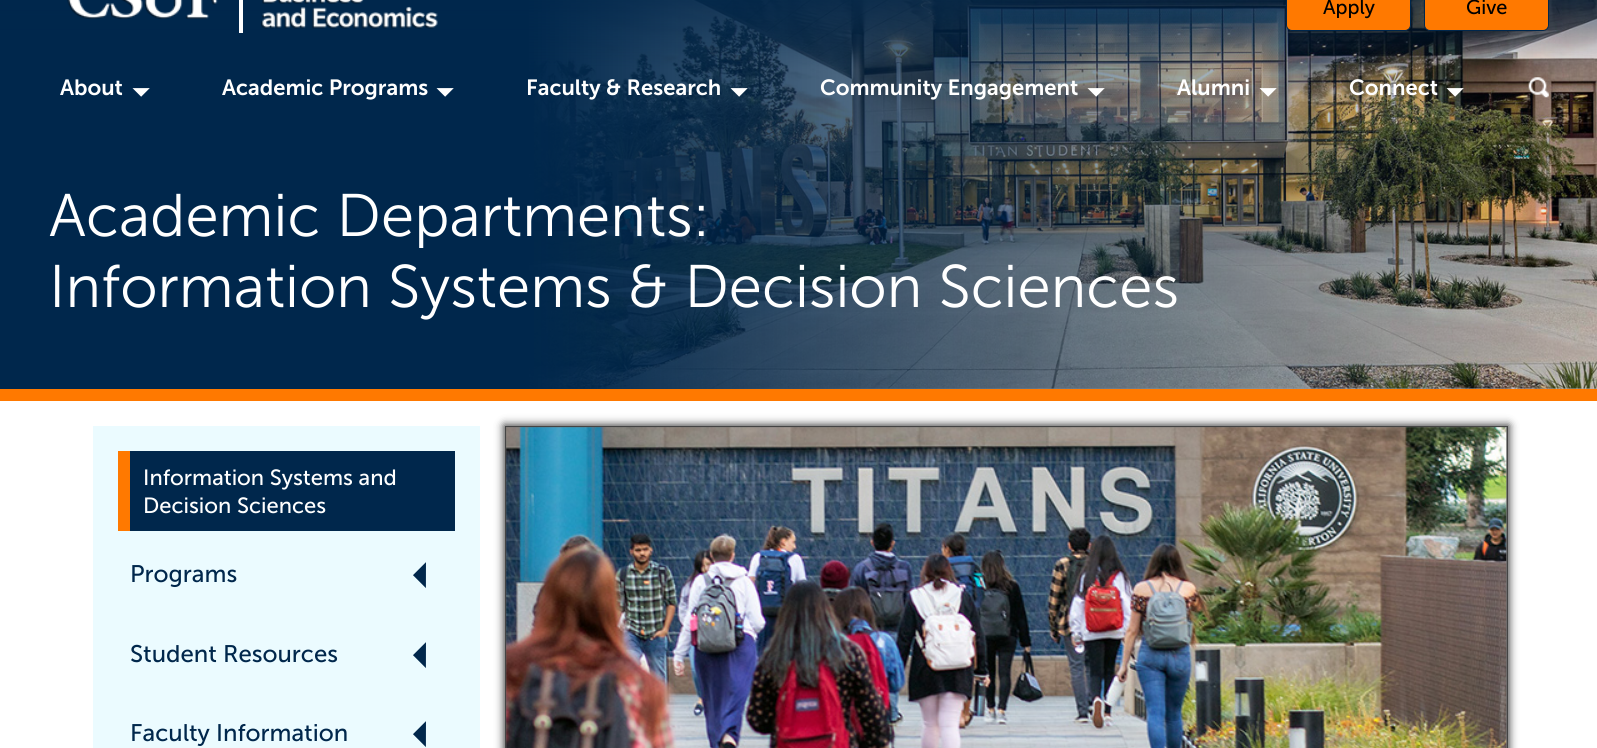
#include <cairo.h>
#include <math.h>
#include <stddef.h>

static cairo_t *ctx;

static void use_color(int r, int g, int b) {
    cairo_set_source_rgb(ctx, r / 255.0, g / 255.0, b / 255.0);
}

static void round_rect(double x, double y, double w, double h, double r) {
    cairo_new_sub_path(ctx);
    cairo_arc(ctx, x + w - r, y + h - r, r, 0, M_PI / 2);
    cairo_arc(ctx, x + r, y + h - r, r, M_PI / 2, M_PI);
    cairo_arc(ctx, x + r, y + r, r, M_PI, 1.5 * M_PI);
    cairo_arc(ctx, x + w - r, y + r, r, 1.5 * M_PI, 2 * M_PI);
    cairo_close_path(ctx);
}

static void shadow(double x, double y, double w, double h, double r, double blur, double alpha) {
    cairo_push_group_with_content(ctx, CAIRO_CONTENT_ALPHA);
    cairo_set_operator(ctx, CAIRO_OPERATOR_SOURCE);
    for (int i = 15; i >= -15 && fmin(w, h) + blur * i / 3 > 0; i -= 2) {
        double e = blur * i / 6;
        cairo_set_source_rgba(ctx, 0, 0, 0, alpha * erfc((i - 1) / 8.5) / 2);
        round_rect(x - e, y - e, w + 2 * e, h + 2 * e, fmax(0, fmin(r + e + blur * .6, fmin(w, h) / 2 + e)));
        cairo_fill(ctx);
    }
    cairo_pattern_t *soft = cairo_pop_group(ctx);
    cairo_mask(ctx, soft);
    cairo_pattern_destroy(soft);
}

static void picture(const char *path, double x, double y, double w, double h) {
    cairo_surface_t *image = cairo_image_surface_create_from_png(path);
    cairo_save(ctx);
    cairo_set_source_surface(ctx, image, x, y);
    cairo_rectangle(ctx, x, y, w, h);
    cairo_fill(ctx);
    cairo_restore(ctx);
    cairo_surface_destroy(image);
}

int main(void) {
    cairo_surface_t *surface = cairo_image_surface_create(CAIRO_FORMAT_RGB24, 1597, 748);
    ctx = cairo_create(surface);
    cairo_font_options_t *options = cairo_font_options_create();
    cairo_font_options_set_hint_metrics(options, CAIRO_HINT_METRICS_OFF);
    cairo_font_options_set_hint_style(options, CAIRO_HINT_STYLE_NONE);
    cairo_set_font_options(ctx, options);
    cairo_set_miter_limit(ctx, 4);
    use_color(255, 255, 255);
    cairo_paint(ctx);
    picture("img1.png", 0, 0, 1597, 389);
    use_color(255, 121, 0);
    cairo_rectangle(ctx, 0, 389, 1597, 12);
    cairo_fill(ctx);
    picture("img2.png", 67, 0, 151, 19);
    use_color(255, 255, 255);
    cairo_rectangle(ctx, 239, 0, 4, 33);
    cairo_fill(ctx);
    picture("img3.png", 261, 0, 177, 29);
    use_color(255, 121, 0);
    round_rect(1286.5, -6.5, 124, 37, 5.5);
    cairo_fill_preserve(ctx);
    use_color(0, 39, 76);
    cairo_set_line_width(ctx, 1);
    cairo_stroke(ctx);
    cairo_select_font_face(ctx, "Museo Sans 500", CAIRO_FONT_SLANT_NORMAL, CAIRO_FONT_WEIGHT_NORMAL);
    cairo_set_font_size(ctx, 20);
    use_color(0, 0, 0);
    cairo_move_to(ctx, 1323, 14);
    cairo_show_text(ctx, "Apply");
    use_color(255, 121, 0);
    round_rect(1424.5, -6.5, 124, 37, 5.5);
    cairo_fill_preserve(ctx);
    use_color(0, 39, 76);
    cairo_stroke(ctx);
    use_color(0, 0, 0);
    cairo_move_to(ctx, 1466, 14);
    cairo_show_text(ctx, "Give");
    cairo_select_font_face(ctx, "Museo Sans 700 SemiBold", CAIRO_FONT_SLANT_NORMAL, CAIRO_FONT_WEIGHT_NORMAL);
    cairo_set_font_size(ctx, 22);
    use_color(255, 255, 255);
    cairo_move_to(ctx, 60, 95);
    cairo_show_text(ctx, "About");
    cairo_select_font_face(ctx, "DejaVu Sans", CAIRO_FONT_SLANT_NORMAL, CAIRO_FONT_WEIGHT_BOLD);
    cairo_set_font_size(ctx, 15);
    cairo_save(ctx);
    cairo_translate(ctx, 134, 87);
    cairo_rotate(ctx, 45 * M_PI / 180);
    cairo_move_to(ctx, 0, 0);
    cairo_show_text(ctx, "◢");
    cairo_restore(ctx);
    cairo_select_font_face(ctx, "Museo Sans 700 SemiBold", CAIRO_FONT_SLANT_NORMAL, CAIRO_FONT_WEIGHT_NORMAL);
    cairo_set_font_size(ctx, 22);
    cairo_move_to(ctx, 222, 95);
    cairo_show_text(ctx, "Academic Programs");
    cairo_select_font_face(ctx, "DejaVu Sans", CAIRO_FONT_SLANT_NORMAL, CAIRO_FONT_WEIGHT_BOLD);
    cairo_set_font_size(ctx, 15);
    cairo_save(ctx);
    cairo_translate(ctx, 438, 87);
    cairo_rotate(ctx, 45 * M_PI / 180);
    cairo_move_to(ctx, 0, 0);
    cairo_show_text(ctx, "◢");
    cairo_restore(ctx);
    cairo_select_font_face(ctx, "Museo Sans 700 SemiBold", CAIRO_FONT_SLANT_NORMAL, CAIRO_FONT_WEIGHT_NORMAL);
    cairo_set_font_size(ctx, 22);
    cairo_move_to(ctx, 526, 95);
    cairo_show_text(ctx, "Faculty & Research");
    cairo_select_font_face(ctx, "DejaVu Sans", CAIRO_FONT_SLANT_NORMAL, CAIRO_FONT_WEIGHT_BOLD);
    cairo_set_font_size(ctx, 15);
    cairo_save(ctx);
    cairo_translate(ctx, 732, 87);
    cairo_rotate(ctx, 45 * M_PI / 180);
    cairo_move_to(ctx, 0, 0);
    cairo_show_text(ctx, "◢");
    cairo_restore(ctx);
    cairo_select_font_face(ctx, "Museo Sans 700 SemiBold", CAIRO_FONT_SLANT_NORMAL, CAIRO_FONT_WEIGHT_NORMAL);
    cairo_set_font_size(ctx, 22);
    cairo_move_to(ctx, 820, 95);
    cairo_show_text(ctx, "Community Engagement");
    cairo_select_font_face(ctx, "DejaVu Sans", CAIRO_FONT_SLANT_NORMAL, CAIRO_FONT_WEIGHT_BOLD);
    cairo_set_font_size(ctx, 15);
    cairo_save(ctx);
    cairo_translate(ctx, 1089, 87);
    cairo_rotate(ctx, 45 * M_PI / 180);
    cairo_move_to(ctx, 0, 0);
    cairo_show_text(ctx, "◢");
    cairo_restore(ctx);
    cairo_select_font_face(ctx, "Museo Sans 700 SemiBold", CAIRO_FONT_SLANT_NORMAL, CAIRO_FONT_WEIGHT_NORMAL);
    cairo_set_font_size(ctx, 22);
    cairo_move_to(ctx, 1177, 95);
    cairo_show_text(ctx, "Alumni");
    cairo_select_font_face(ctx, "DejaVu Sans", CAIRO_FONT_SLANT_NORMAL, CAIRO_FONT_WEIGHT_BOLD);
    cairo_set_font_size(ctx, 15);
    cairo_save(ctx);
    cairo_translate(ctx, 1261, 87);
    cairo_rotate(ctx, 45 * M_PI / 180);
    cairo_move_to(ctx, 0, 0);
    cairo_show_text(ctx, "◢");
    cairo_restore(ctx);
    cairo_select_font_face(ctx, "Museo Sans 700 SemiBold", CAIRO_FONT_SLANT_NORMAL, CAIRO_FONT_WEIGHT_NORMAL);
    cairo_set_font_size(ctx, 22);
    cairo_move_to(ctx, 1349, 95);
    cairo_show_text(ctx, "Connect");
    cairo_select_font_face(ctx, "DejaVu Sans", CAIRO_FONT_SLANT_NORMAL, CAIRO_FONT_WEIGHT_BOLD);
    cairo_set_font_size(ctx, 15);
    cairo_save(ctx);
    cairo_translate(ctx, 1448, 87);
    cairo_rotate(ctx, 45 * M_PI / 180);
    cairo_move_to(ctx, 0, 0);
    cairo_show_text(ctx, "◢");
    cairo_restore(ctx);
    picture("img4.png", 1528, 77, 21, 21);
    cairo_select_font_face(ctx, "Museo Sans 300 Light", CAIRO_FONT_SLANT_NORMAL, CAIRO_FONT_WEIGHT_NORMAL);
    cairo_set_font_size(ctx, 60);
    cairo_move_to(ctx, 49, 236);
    cairo_show_text(ctx, "Academic Departments:");
    cairo_move_to(ctx, 49, 307);
    cairo_show_text(ctx, "Information Systems & Decision Sciences");
    use_color(235, 251, 255);
    cairo_rectangle(ctx, 93, 426, 387, 322);
    cairo_fill(ctx);
    use_color(0, 39, 76);
    cairo_rectangle(ctx, 130, 451, 325, 80);
    cairo_fill(ctx);
    use_color(255, 121, 0);
    cairo_rectangle(ctx, 118, 451, 12, 80);
    cairo_fill(ctx);
    cairo_select_font_face(ctx, "Museo Sans 500", CAIRO_FONT_SLANT_NORMAL, CAIRO_FONT_WEIGHT_NORMAL);
    cairo_set_font_size(ctx, 22);
    use_color(255, 255, 255);
    cairo_move_to(ctx, 143, 485);
    cairo_show_text(ctx, "Information Systems and");
    cairo_move_to(ctx, 143, 513);
    cairo_show_text(ctx, "Decision Sciences");
    cairo_set_font_size(ctx, 24);
    use_color(0, 39, 76);
    cairo_move_to(ctx, 130, 582);
    cairo_show_text(ctx, "Programs");
    cairo_select_font_face(ctx, "DejaVu Sans", CAIRO_FONT_SLANT_NORMAL, CAIRO_FONT_WEIGHT_NORMAL);
    cairo_save(ctx);
    cairo_translate(ctx, 415, 573);
    cairo_rotate(ctx, 45 * M_PI / 180);
    cairo_move_to(ctx, 0, 0);
    cairo_show_text(ctx, "◣");
    cairo_restore(ctx);
    cairo_select_font_face(ctx, "Museo Sans 500", CAIRO_FONT_SLANT_NORMAL, CAIRO_FONT_WEIGHT_NORMAL);
    cairo_move_to(ctx, 130, 662);
    cairo_show_text(ctx, "Student Resources");
    cairo_select_font_face(ctx, "DejaVu Sans", CAIRO_FONT_SLANT_NORMAL, CAIRO_FONT_WEIGHT_NORMAL);
    cairo_save(ctx);
    cairo_translate(ctx, 415, 653);
    cairo_rotate(ctx, 45 * M_PI / 180);
    cairo_move_to(ctx, 0, 0);
    cairo_show_text(ctx, "◣");
    cairo_restore(ctx);
    cairo_select_font_face(ctx, "Museo Sans 500", CAIRO_FONT_SLANT_NORMAL, CAIRO_FONT_WEIGHT_NORMAL);
    cairo_move_to(ctx, 130, 741);
    cairo_show_text(ctx, "Faculty Information");
    cairo_select_font_face(ctx, "DejaVu Sans", CAIRO_FONT_SLANT_NORMAL, CAIRO_FONT_WEIGHT_NORMAL);
    cairo_save(ctx);
    cairo_translate(ctx, 415, 732);
    cairo_rotate(ctx, 45 * M_PI / 180);
    cairo_move_to(ctx, 0, 0);
    cairo_show_text(ctx, "◣");
    cairo_restore(ctx);
    use_color(51, 51, 51);
    shadow(504, 425, 1005, 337, 0, 4.5, 1);
    cairo_rectangle(ctx, 505.5, 426.5, 1002, 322);
    use_color(68, 68, 68);
    cairo_stroke(ctx);
    picture("img5.png", 506, 427, 1001, 321);
    cairo_surface_write_to_png(surface, "result.png");
    cairo_font_options_destroy(options);
    cairo_destroy(ctx);
    cairo_surface_destroy(surface);
    return 0;
}
